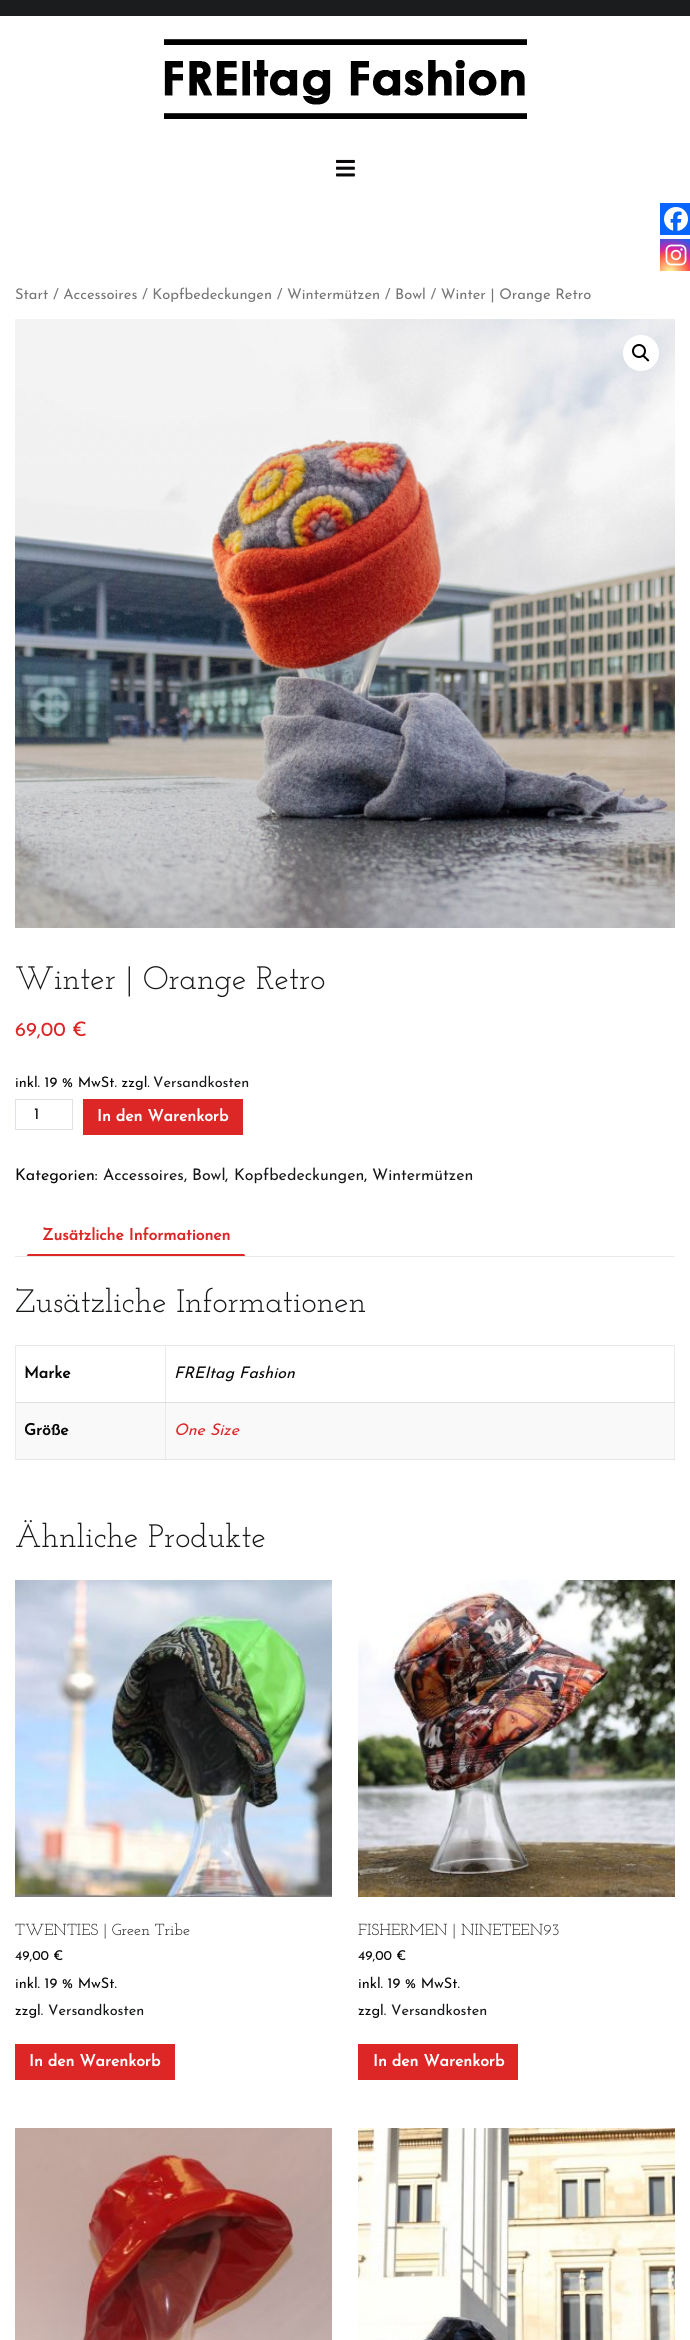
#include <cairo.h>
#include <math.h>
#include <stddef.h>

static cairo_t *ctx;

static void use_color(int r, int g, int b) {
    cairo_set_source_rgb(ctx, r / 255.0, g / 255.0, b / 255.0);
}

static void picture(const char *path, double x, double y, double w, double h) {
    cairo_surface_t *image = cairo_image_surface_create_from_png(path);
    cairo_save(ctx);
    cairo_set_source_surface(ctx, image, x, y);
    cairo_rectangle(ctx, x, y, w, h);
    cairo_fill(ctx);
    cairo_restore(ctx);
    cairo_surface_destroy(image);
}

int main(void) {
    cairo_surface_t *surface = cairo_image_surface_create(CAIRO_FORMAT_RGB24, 690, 2340);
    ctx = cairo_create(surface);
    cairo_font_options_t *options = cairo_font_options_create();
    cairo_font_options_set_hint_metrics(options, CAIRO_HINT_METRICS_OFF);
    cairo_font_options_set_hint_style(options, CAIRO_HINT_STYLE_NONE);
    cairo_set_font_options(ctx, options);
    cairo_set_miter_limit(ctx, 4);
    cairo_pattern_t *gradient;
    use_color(255, 255, 255);
    cairo_paint(ctx);
    use_color(230, 230, 230);
    cairo_rectangle(ctx, 15, 1459, 660, 1);
    cairo_fill(ctx);
    use_color(27, 28, 30);
    cairo_rectangle(ctx, 0, 0, 690, 16);
    cairo_fill(ctx);
    use_color(7, 101, 254);
    cairo_rectangle(ctx, 660, 203, 30, 32);
    cairo_fill(ctx);
    picture("img1.png", 664, 207, 24, 24);
    gradient = cairo_pattern_create_radial(670, 273, 0, 670, 273, 41);
    cairo_pattern_add_color_stop_rgba(gradient, 0, 0.992, 0.957, 0.592, 1);
    cairo_pattern_add_color_stop_rgba(gradient, 0.05, 0.992, 0.957, 0.592, 1);
    cairo_pattern_add_color_stop_rgba(gradient, 0.45, 0.992, 0.349, 0.286, 1);
    cairo_pattern_add_color_stop_rgba(gradient, 0.6, 0.839, 0.141, 0.624, 1);
    cairo_pattern_add_color_stop_rgba(gradient, 0.9, 0.157, 0.353, 0.922, 1);
    cairo_set_source(ctx, gradient);
    cairo_pattern_destroy(gradient);
    cairo_rectangle(ctx, 660, 239, 30, 32);
    cairo_fill(ctx);
    picture("img2.png", 665, 244, 22, 22);
    picture("img3.png", 164, 39, 363, 80);
    picture("img4.png", 336, 159, 19, 18);
    cairo_select_font_face(ctx, "Josefin Sans Thin", CAIRO_FONT_SLANT_NORMAL, CAIRO_FONT_WEIGHT_NORMAL);
    cairo_set_font_size(ctx, 14.7);
    use_color(118, 118, 118);
    cairo_move_to(ctx, 15, 299);
    cairo_show_text(ctx, "Start / Accessoires / Kopfbedeckungen / Wintermützen / Bowl / Winter | Orange Retro");
    picture("img5.png", 15, 319, 660, 609);
    use_color(255, 255, 255);
    cairo_arc(ctx, 641, 353, 18, 0, 2 * M_PI);
    cairo_fill(ctx);
    cairo_arc(ctx, 639, 351, 6, 0, 2 * M_PI);
    use_color(0, 0, 0);
    cairo_stroke(ctx);
    cairo_new_path(ctx);
    cairo_move_to(ctx, 643, 355.5);
    cairo_curve_to(ctx, 644.5, 354.5, 646, 357, 646.5, 357.5);
    cairo_curve_to(ctx, 647.5, 358.5, 650, 360, 649, 361);
    cairo_curve_to(ctx, 647.5, 362.5, 646, 359.5, 645.5, 359);
    cairo_curve_to(ctx, 644.5, 358.5, 642, 356.5, 643, 355.5);
    cairo_close_path(ctx);
    cairo_fill(ctx);
    cairo_select_font_face(ctx, "Josefin Slab Thin", CAIRO_FONT_SLANT_NORMAL, CAIRO_FONT_WEIGHT_NORMAL);
    cairo_set_font_size(ctx, 32.4);
    use_color(22, 24, 26);
    cairo_move_to(ctx, 15, 989);
    cairo_show_text(ctx, "Winter | Orange Retro");
    cairo_select_font_face(ctx, "Josefin Sans Thin", CAIRO_FONT_SLANT_NORMAL, CAIRO_FONT_WEIGHT_NORMAL);
    cairo_set_font_size(ctx, 20);
    use_color(221, 39, 39);
    cairo_move_to(ctx, 15, 1036);
    cairo_show_text(ctx, "69,00 €");
    cairo_set_font_size(ctx, 14.5);
    use_color(10, 8, 8);
    cairo_move_to(ctx, 15, 1087);
    cairo_show_text(ctx, "inkl. 19 % MwSt. zzgl.");
    use_color(22, 24, 26);
    cairo_move_to(ctx, 153, 1087);
    cairo_show_text(ctx, "Versandkosten");
    cairo_rectangle(ctx, 15.5, 1099.5, 57, 30);
    use_color(222, 226, 230);
    cairo_set_line_width(ctx, 1);
    cairo_stroke(ctx);
    cairo_set_font_size(ctx, 16);
    use_color(22, 24, 26);
    cairo_move_to(ctx, 34, 1119);
    cairo_show_text(ctx, "1");
    use_color(221, 39, 39);
    cairo_rectangle(ctx, 83, 1099, 160, 36);
    cairo_fill(ctx);
    cairo_select_font_face(ctx, "Josefin Sans", CAIRO_FONT_SLANT_NORMAL, CAIRO_FONT_WEIGHT_BOLD);
    use_color(255, 255, 255);
    cairo_move_to(ctx, 97, 1121);
    cairo_show_text(ctx, "In den Warenkorb");
    cairo_select_font_face(ctx, "Josefin Sans Thin", CAIRO_FONT_SLANT_NORMAL, CAIRO_FONT_WEIGHT_NORMAL);
    use_color(10, 8, 8);
    cairo_move_to(ctx, 15, 1180);
    cairo_show_text(ctx, "Kategorien:");
    use_color(22, 24, 26);
    cairo_move_to(ctx, 103, 1180);
    cairo_show_text(ctx, "Accessoires");
    use_color(10, 8, 8);
    cairo_move_to(ctx, 184, 1180);
    cairo_show_text(ctx, ",");
    use_color(22, 24, 26);
    cairo_move_to(ctx, 192, 1180);
    cairo_show_text(ctx, "Bowl");
    use_color(10, 8, 8);
    cairo_move_to(ctx, 225, 1180);
    cairo_show_text(ctx, ",");
    use_color(22, 24, 26);
    cairo_move_to(ctx, 234, 1180);
    cairo_show_text(ctx, "Kopfbedeckungen");
    use_color(10, 8, 8);
    cairo_move_to(ctx, 364, 1180);
    cairo_show_text(ctx, ",");
    use_color(22, 24, 26);
    cairo_move_to(ctx, 372, 1180);
    cairo_show_text(ctx, "Wintermützen");
    use_color(233, 236, 239);
    cairo_rectangle(ctx, 15, 1256, 660, 1);
    cairo_fill(ctx);
    use_color(221, 39, 39);
    cairo_rectangle(ctx, 26, 1254, 220, 2);
    cairo_fill(ctx);
    cairo_select_font_face(ctx, "Josefin Sans", CAIRO_FONT_SLANT_NORMAL, CAIRO_FONT_WEIGHT_BOLD);
    cairo_move_to(ctx, 42, 1240);
    cairo_show_text(ctx, "Zusätzliche Informationen");
    cairo_save(ctx);
    cairo_rectangle(ctx, 15, 1219, 660, 37);
    cairo_clip(ctx);
    use_color(255, 255, 255);
    cairo_new_path(ctx);
    cairo_move_to(ctx, 23, 1255);
    cairo_line_to(ctx, 23, 1257);
    cairo_curve_to(ctx, 26.5, 1257, 28, 1255.5, 28, 1252);
    cairo_line_to(ctx, 26, 1252);
    cairo_curve_to(ctx, 25.5, 1253.5, 24.5, 1254.5, 23, 1255);
    cairo_close_path(ctx);
    cairo_fill(ctx);
    cairo_new_path(ctx);
    cairo_move_to(ctx, 244, 1252);
    cairo_curve_to(ctx, 244, 1255.5, 245.5, 1257, 249, 1257);
    cairo_line_to(ctx, 249, 1255);
    cairo_curve_to(ctx, 247.5, 1254.5, 246.5, 1253.5, 246, 1252);
    cairo_close_path(ctx);
    cairo_fill(ctx);
    cairo_restore(ctx);
    cairo_select_font_face(ctx, "Josefin Slab Thin", CAIRO_FONT_SLANT_NORMAL, CAIRO_FONT_WEIGHT_NORMAL);
    cairo_set_font_size(ctx, 32.4);
    use_color(22, 24, 26);
    cairo_move_to(ctx, 15, 1312);
    cairo_show_text(ctx, "Zusätzliche Informationen");
    use_color(230, 230, 230);
    cairo_rectangle(ctx, 15, 1345, 660, 1);
    cairo_fill(ctx);
    cairo_select_font_face(ctx, "Josefin Sans", CAIRO_FONT_SLANT_NORMAL, CAIRO_FONT_WEIGHT_BOLD);
    cairo_set_font_size(ctx, 16);
    use_color(10, 8, 8);
    cairo_move_to(ctx, 24, 1378);
    cairo_show_text(ctx, "Marke");
    use_color(224, 224, 224);
    cairo_rectangle(ctx, 16, 1402, 659, 1);
    cairo_fill(ctx);
    use_color(233, 236, 239);
    cairo_rectangle(ctx, 674, 1345, 1, 115);
    cairo_fill(ctx);
    use_color(210, 212, 215);
    cairo_rectangle(ctx, 674, 1402, 1, 1);
    cairo_fill(ctx);
    use_color(233, 236, 239);
    cairo_rectangle(ctx, 165, 1345, 1, 115);
    cairo_fill(ctx);
    use_color(210, 212, 215);
    cairo_rectangle(ctx, 165, 1402, 1, 1);
    cairo_fill(ctx);
    cairo_select_font_face(ctx, "Josefin Sans Thin", CAIRO_FONT_SLANT_ITALIC, CAIRO_FONT_WEIGHT_NORMAL);
    use_color(10, 8, 8);
    cairo_move_to(ctx, 174, 1378);
    cairo_show_text(ctx, "FREItag Fashion");
    use_color(249, 249, 249);
    cairo_rectangle(ctx, 16, 1403, 149, 56);
    cairo_fill(ctx);
    use_color(233, 236, 239);
    cairo_rectangle(ctx, 15, 1345, 1, 115);
    cairo_fill(ctx);
    cairo_select_font_face(ctx, "Josefin Sans", CAIRO_FONT_SLANT_NORMAL, CAIRO_FONT_WEIGHT_BOLD);
    use_color(10, 8, 8);
    cairo_move_to(ctx, 24, 1435);
    cairo_show_text(ctx, "Größe");
    use_color(249, 249, 249);
    cairo_rectangle(ctx, 166, 1403, 508, 56);
    cairo_fill(ctx);
    use_color(210, 212, 215);
    cairo_rectangle(ctx, 674, 1459, 1, 1);
    cairo_fill(ctx);
    cairo_rectangle(ctx, 165, 1459, 1, 1);
    cairo_fill(ctx);
    cairo_select_font_face(ctx, "Josefin Sans Thin", CAIRO_FONT_SLANT_ITALIC, CAIRO_FONT_WEIGHT_NORMAL);
    use_color(221, 39, 39);
    cairo_move_to(ctx, 174, 1435);
    cairo_show_text(ctx, "One Size");
    cairo_select_font_face(ctx, "Josefin Slab Thin", CAIRO_FONT_SLANT_NORMAL, CAIRO_FONT_WEIGHT_NORMAL);
    cairo_set_font_size(ctx, 32.4);
    use_color(22, 24, 26);
    cairo_move_to(ctx, 15, 1547);
    cairo_show_text(ctx, "Ähnliche Produkte");
    picture("img6.png", 15, 1580, 317, 317);
    cairo_set_font_size(ctx, 16);
    cairo_move_to(ctx, 15, 1935);
    cairo_show_text(ctx, "TWENTIES | Green Tribe");
    cairo_select_font_face(ctx, "Josefin Sans Thin", CAIRO_FONT_SLANT_NORMAL, CAIRO_FONT_WEIGHT_NORMAL);
    cairo_set_font_size(ctx, 13.5);
    use_color(10, 8, 8);
    cairo_move_to(ctx, 15, 1960);
    cairo_show_text(ctx, "49,00 €");
    cairo_set_font_size(ctx, 14.5);
    cairo_move_to(ctx, 15, 1988);
    cairo_show_text(ctx, "inkl. 19 % MwSt.");
    cairo_move_to(ctx, 15, 2015);
    cairo_show_text(ctx, "zzgl.");
    use_color(22, 24, 26);
    cairo_move_to(ctx, 48, 2015);
    cairo_show_text(ctx, "Versandkosten");
    use_color(221, 39, 39);
    cairo_rectangle(ctx, 15, 2044, 160, 36);
    cairo_fill(ctx);
    cairo_select_font_face(ctx, "Josefin Sans", CAIRO_FONT_SLANT_NORMAL, CAIRO_FONT_WEIGHT_BOLD);
    cairo_set_font_size(ctx, 16);
    use_color(255, 255, 255);
    cairo_move_to(ctx, 29, 2066);
    cairo_show_text(ctx, "In den Warenkorb");
    picture("img7.png", 358, 1580, 317, 317);
    cairo_select_font_face(ctx, "Josefin Slab Thin", CAIRO_FONT_SLANT_NORMAL, CAIRO_FONT_WEIGHT_NORMAL);
    use_color(22, 24, 26);
    cairo_move_to(ctx, 358, 1935);
    cairo_show_text(ctx, "FISHERMEN | NINETEEN93");
    cairo_select_font_face(ctx, "Josefin Sans Thin", CAIRO_FONT_SLANT_NORMAL, CAIRO_FONT_WEIGHT_NORMAL);
    cairo_set_font_size(ctx, 13.5);
    use_color(10, 8, 8);
    cairo_move_to(ctx, 358, 1960);
    cairo_show_text(ctx, "49,00 €");
    cairo_set_font_size(ctx, 14.5);
    cairo_move_to(ctx, 358, 1988);
    cairo_show_text(ctx, "inkl. 19 % MwSt.");
    cairo_move_to(ctx, 358, 2015);
    cairo_show_text(ctx, "zzgl.");
    use_color(22, 24, 26);
    cairo_move_to(ctx, 391, 2015);
    cairo_show_text(ctx, "Versandkosten");
    use_color(221, 39, 39);
    cairo_rectangle(ctx, 358, 2044, 160, 36);
    cairo_fill(ctx);
    cairo_select_font_face(ctx, "Josefin Sans", CAIRO_FONT_SLANT_NORMAL, CAIRO_FONT_WEIGHT_BOLD);
    cairo_set_font_size(ctx, 16);
    use_color(255, 255, 255);
    cairo_move_to(ctx, 373, 2066);
    cairo_show_text(ctx, "In den Warenkorb");
    picture("img8.png", 15, 2128, 317, 212);
    picture("img9.png", 358, 2128, 317, 212);
    cairo_surface_write_to_png(surface, "result.png");
    cairo_font_options_destroy(options);
    cairo_destroy(ctx);
    cairo_surface_destroy(surface);
    return 0;
}
